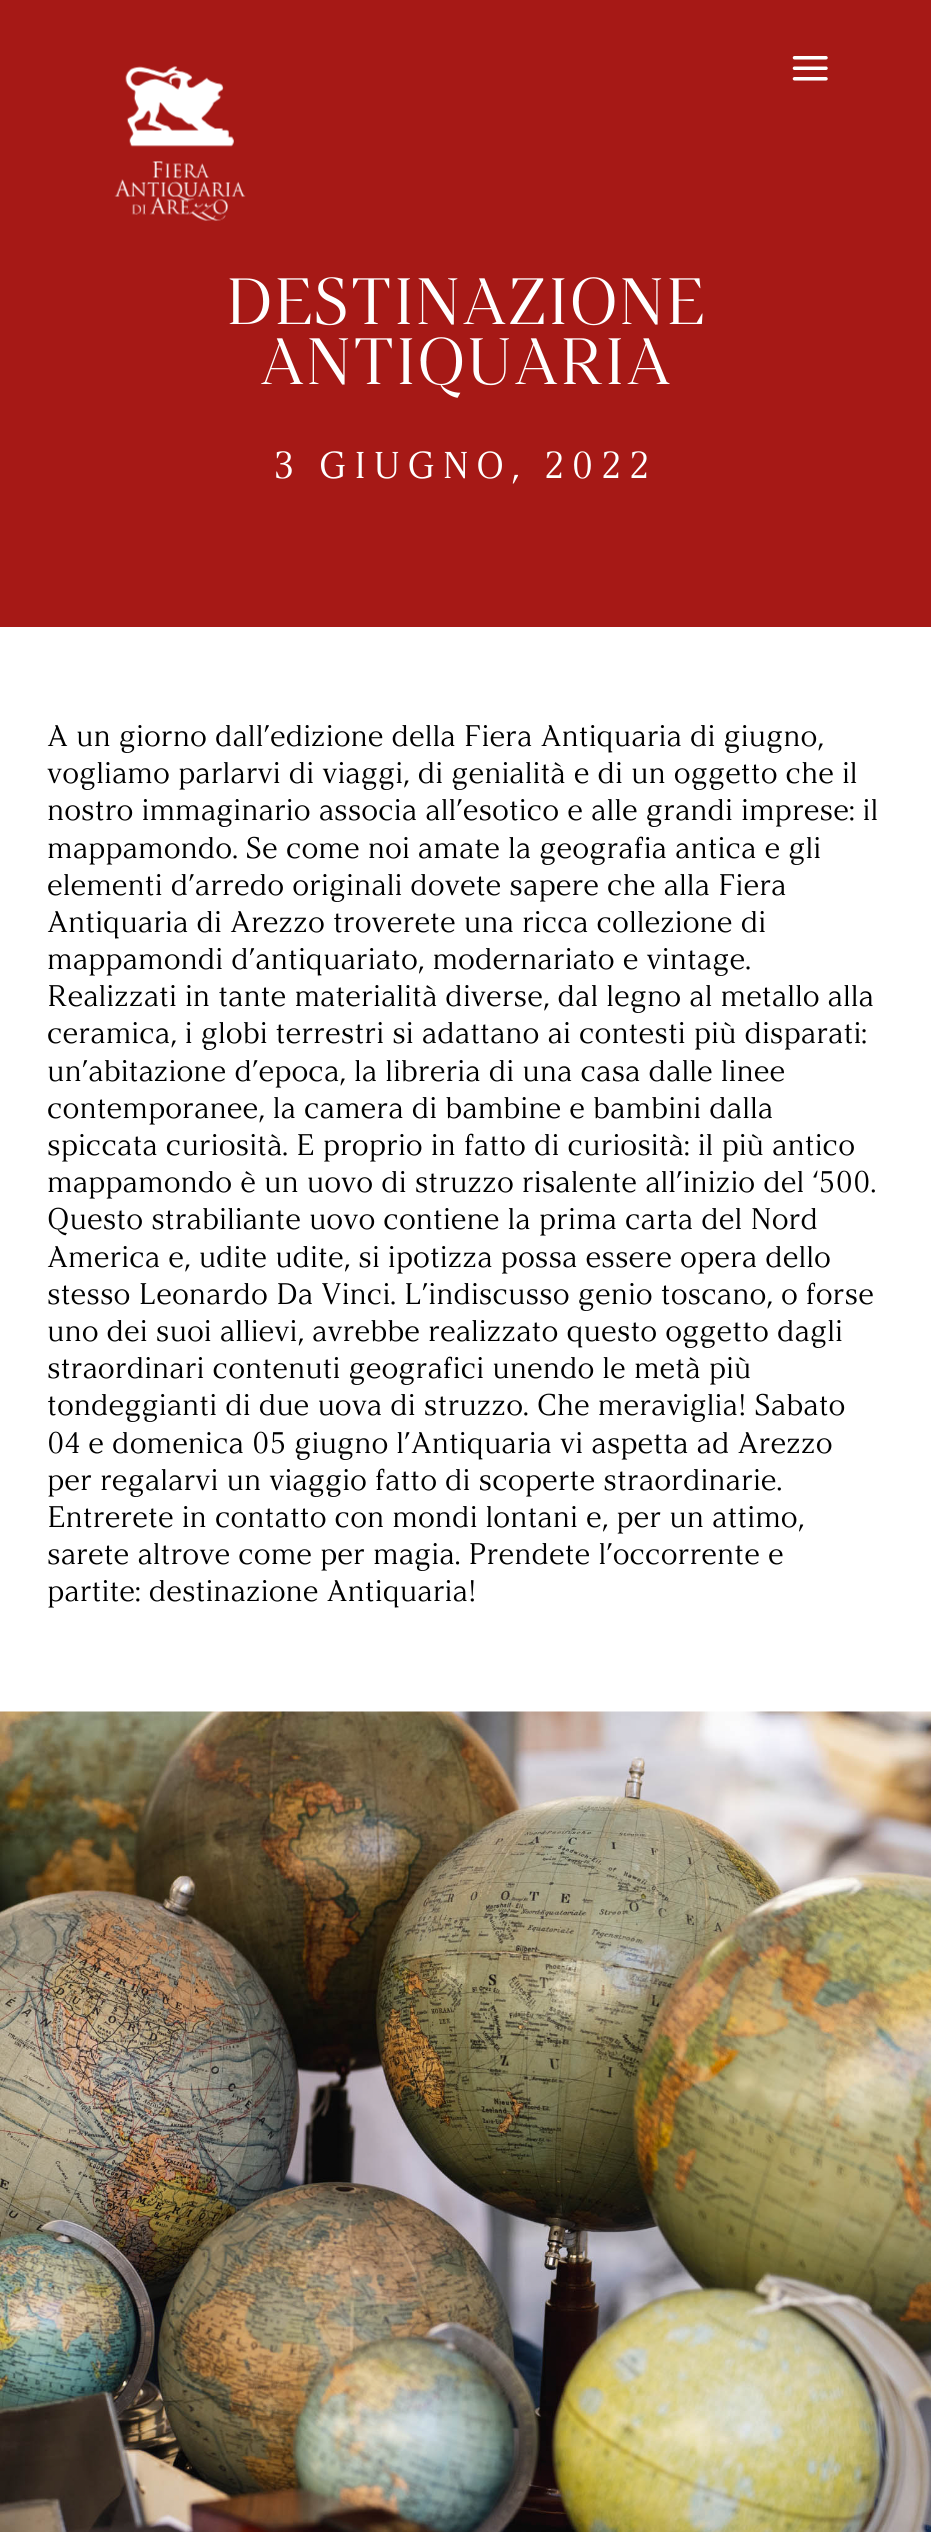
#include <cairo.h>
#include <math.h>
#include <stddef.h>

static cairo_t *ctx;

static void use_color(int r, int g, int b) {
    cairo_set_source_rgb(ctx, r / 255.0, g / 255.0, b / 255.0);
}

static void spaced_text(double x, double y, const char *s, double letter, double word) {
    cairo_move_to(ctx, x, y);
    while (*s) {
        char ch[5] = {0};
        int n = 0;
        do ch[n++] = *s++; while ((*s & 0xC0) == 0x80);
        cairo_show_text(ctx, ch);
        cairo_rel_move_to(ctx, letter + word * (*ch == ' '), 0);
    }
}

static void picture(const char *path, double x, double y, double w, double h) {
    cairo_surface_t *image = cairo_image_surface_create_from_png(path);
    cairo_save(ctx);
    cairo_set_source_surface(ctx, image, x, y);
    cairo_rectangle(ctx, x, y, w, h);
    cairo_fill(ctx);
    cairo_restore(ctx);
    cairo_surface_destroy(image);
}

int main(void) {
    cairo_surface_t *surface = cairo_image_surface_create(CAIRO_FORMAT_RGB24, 931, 2532);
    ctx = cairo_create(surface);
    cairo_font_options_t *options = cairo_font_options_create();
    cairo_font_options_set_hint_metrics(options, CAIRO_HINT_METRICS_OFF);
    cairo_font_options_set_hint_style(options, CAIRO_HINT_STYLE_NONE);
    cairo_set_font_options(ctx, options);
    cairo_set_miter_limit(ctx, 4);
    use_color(255, 255, 255);
    cairo_paint(ctx);
    use_color(166, 25, 22);
    cairo_rectangle(ctx, 0, 0, 931, 627);
    cairo_fill(ctx);
    picture("img1.png", 114, 66, 132, 155);
    picture("img2.png", 792, 56, 36, 25);
    cairo_select_font_face(ctx, "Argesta", CAIRO_FONT_SLANT_NORMAL, CAIRO_FONT_WEIGHT_NORMAL);
    cairo_set_font_size(ctx, 65.25);
    use_color(255, 255, 255);
    cairo_move_to(ctx, 225, 324);
    cairo_show_text(ctx, "DESTINAZIONE");
    cairo_move_to(ctx, 259, 384);
    cairo_show_text(ctx, "ANTIQUARIA");
    cairo_select_font_face(ctx, "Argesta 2", CAIRO_FONT_SLANT_NORMAL, CAIRO_FONT_WEIGHT_NORMAL);
    cairo_set_font_size(ctx, 37.25);
    spaced_text(274, 478, "3 GIUGNO, 2022", 7, 0);
    cairo_set_font_size(ctx, 29.75);
    use_color(0, 0, 0);
    cairo_move_to(ctx, 47, 746);
    cairo_show_text(ctx, "A un giorno dall’edizione della Fiera Antiquaria di giugno,");
    cairo_move_to(ctx, 47, 783);
    cairo_show_text(ctx, "vogliamo parlarvi di viaggi, di genialità e di un oggetto che il");
    cairo_move_to(ctx, 47, 820);
    cairo_show_text(ctx, "nostro immaginario associa all’esotico e alle grandi imprese: il");
    cairo_move_to(ctx, 47, 858);
    cairo_show_text(ctx, "mappamondo. Se come noi amate la geografia antica e gli");
    cairo_move_to(ctx, 47, 895);
    cairo_show_text(ctx, "elementi d’arredo originali dovete sapere che alla Fiera");
    cairo_move_to(ctx, 47, 932);
    cairo_show_text(ctx, "Antiquaria di Arezzo troverete una ricca collezione di");
    cairo_move_to(ctx, 47, 969);
    cairo_show_text(ctx, "mappamondi d’antiquariato, modernariato e vintage.");
    cairo_move_to(ctx, 47, 1006);
    cairo_show_text(ctx, "Realizzati in tante materialità diverse, dal legno al metallo alla");
    cairo_move_to(ctx, 47, 1043);
    cairo_show_text(ctx, "ceramica, i globi terrestri si adattano ai contesti più disparati:");
    cairo_move_to(ctx, 47, 1081);
    cairo_show_text(ctx, "un’abitazione d’epoca, la libreria di una casa dalle linee");
    cairo_move_to(ctx, 47, 1118);
    cairo_show_text(ctx, "contemporanee, la camera di bambine e bambini dalla");
    cairo_move_to(ctx, 47, 1155);
    cairo_show_text(ctx, "spiccata curiosità. E proprio in fatto di curiosità: il più antico");
    cairo_move_to(ctx, 47, 1192);
    cairo_show_text(ctx, "mappamondo è un uovo di struzzo risalente all’inizio del ‘500.");
    cairo_move_to(ctx, 47, 1229);
    cairo_show_text(ctx, "Questo strabiliante uovo contiene la prima carta del Nord");
    cairo_move_to(ctx, 47, 1267);
    cairo_show_text(ctx, "America e, udite udite, si ipotizza possa essere opera dello");
    cairo_move_to(ctx, 47, 1304);
    cairo_show_text(ctx, "stesso Leonardo Da Vinci. L’indiscusso genio toscano, o forse");
    cairo_move_to(ctx, 47, 1341);
    cairo_show_text(ctx, "uno dei suoi allievi, avrebbe realizzato questo oggetto dagli");
    cairo_move_to(ctx, 47, 1378);
    cairo_show_text(ctx, "straordinari contenuti geografici unendo le metà più");
    cairo_move_to(ctx, 47, 1415);
    cairo_show_text(ctx, "tondeggianti di due uova di struzzo. Che meraviglia! Sabato");
    cairo_move_to(ctx, 47, 1453);
    cairo_show_text(ctx, "04 e domenica 05 giugno l’Antiquaria vi aspetta ad Arezzo");
    cairo_move_to(ctx, 47, 1490);
    cairo_show_text(ctx, "per regalarvi un viaggio fatto di scoperte straordinarie.");
    cairo_move_to(ctx, 47, 1527);
    cairo_show_text(ctx, "Entrerete in contatto con mondi lontani e, per un attimo,");
    cairo_move_to(ctx, 47, 1564);
    cairo_show_text(ctx, "sarete altrove come per magia. Prendete l’occorrente e");
    cairo_move_to(ctx, 47, 1601);
    cairo_show_text(ctx, "partite: destinazione Antiquaria!");
    picture("img3.png", 0, 1711, 931, 821);
    cairo_surface_write_to_png(surface, "result.png");
    cairo_font_options_destroy(options);
    cairo_destroy(ctx);
    cairo_surface_destroy(surface);
    return 0;
}
